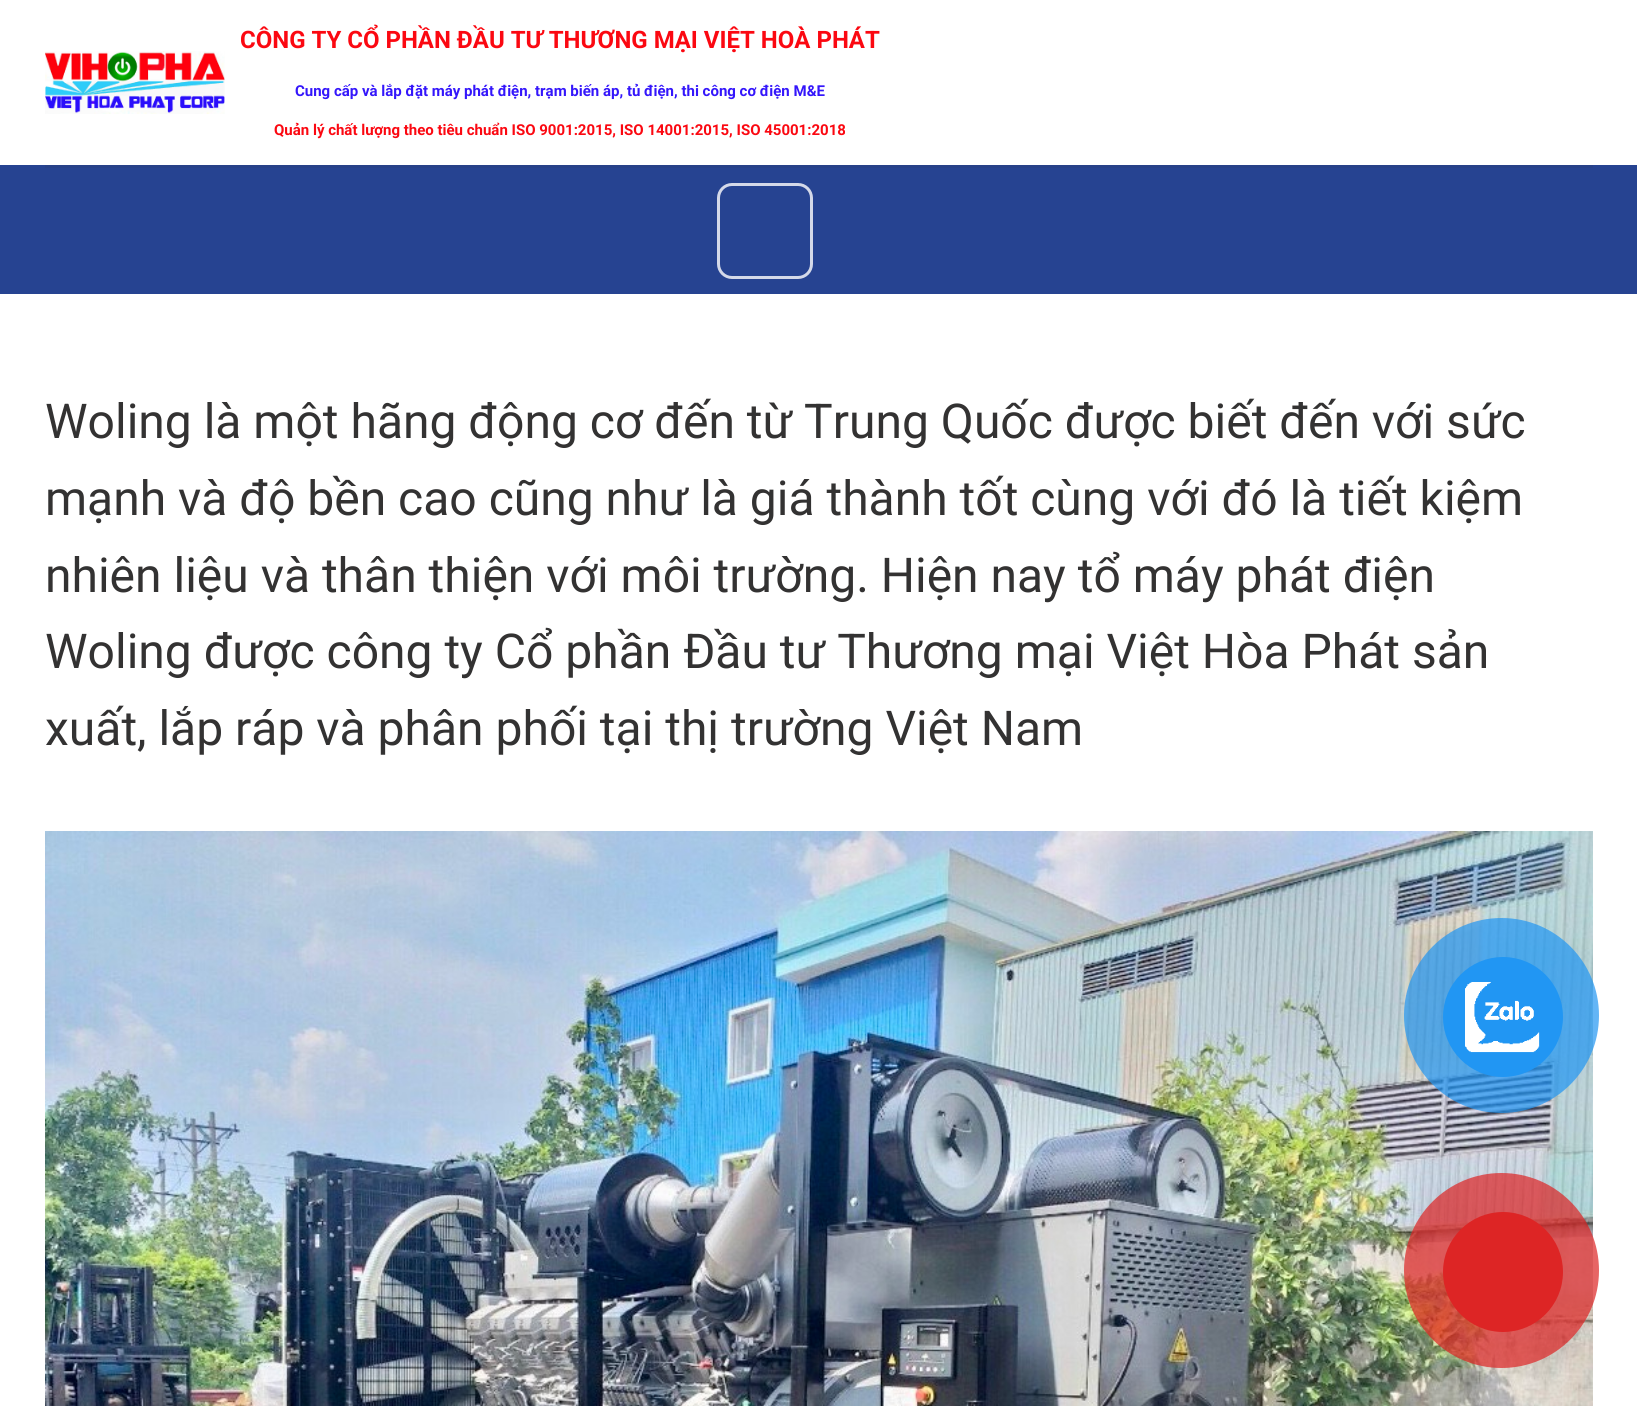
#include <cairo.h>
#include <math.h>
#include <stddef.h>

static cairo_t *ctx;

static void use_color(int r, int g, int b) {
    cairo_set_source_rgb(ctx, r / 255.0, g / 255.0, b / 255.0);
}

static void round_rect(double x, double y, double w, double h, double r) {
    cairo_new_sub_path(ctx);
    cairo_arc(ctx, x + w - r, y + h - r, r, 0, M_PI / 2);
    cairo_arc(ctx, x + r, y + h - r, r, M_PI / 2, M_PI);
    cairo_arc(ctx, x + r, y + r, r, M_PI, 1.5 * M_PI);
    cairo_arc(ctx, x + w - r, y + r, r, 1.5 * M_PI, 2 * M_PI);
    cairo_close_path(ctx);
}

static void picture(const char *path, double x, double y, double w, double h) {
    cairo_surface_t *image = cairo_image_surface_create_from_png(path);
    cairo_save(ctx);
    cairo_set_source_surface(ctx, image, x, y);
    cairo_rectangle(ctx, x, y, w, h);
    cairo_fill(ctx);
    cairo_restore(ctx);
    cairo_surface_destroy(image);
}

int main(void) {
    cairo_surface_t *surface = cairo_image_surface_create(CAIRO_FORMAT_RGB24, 1637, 1406);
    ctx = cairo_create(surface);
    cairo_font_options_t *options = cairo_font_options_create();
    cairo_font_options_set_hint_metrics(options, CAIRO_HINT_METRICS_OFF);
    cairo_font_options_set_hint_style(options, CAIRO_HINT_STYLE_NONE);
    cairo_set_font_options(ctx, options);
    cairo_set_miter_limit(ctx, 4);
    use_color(255, 255, 255);
    cairo_paint(ctx);
    picture("img1.png", 45, 51, 180, 63);
    cairo_select_font_face(ctx, "Roboto", CAIRO_FONT_SLANT_NORMAL, CAIRO_FONT_WEIGHT_BOLD);
    cairo_set_font_size(ctx, 24);
    use_color(251, 8, 17);
    cairo_move_to(ctx, 240, 48);
    cairo_show_text(ctx, "CÔNG TY CỔ PHẦN ĐẦU TƯ THƯƠNG MẠI VIỆT HOÀ PHÁT");
    cairo_set_font_size(ctx, 15);
    use_color(52, 22, 251);
    cairo_move_to(ctx, 295, 96);
    cairo_show_text(ctx, "Cung cấp và lắp đặt máy phát điện, trạm biến áp, tủ điện, thi công cơ điện M&E");
    use_color(251, 8, 17);
    cairo_move_to(ctx, 274, 135);
    cairo_show_text(ctx, "Quản lý chất lượng theo tiêu chuẩn ISO 9001:2015, ISO 14001:2015, ISO 45001:2018");
    use_color(38, 67, 145);
    cairo_rectangle(ctx, 0, 165, 1637, 129);
    cairo_fill(ctx);
    use_color(39, 65, 136);
    cairo_rectangle(ctx, 45, 165, 1548, 3);
    cairo_fill(ctx);
    round_rect(718.5, 184.5, 93, 93, 13.5);
    use_color(212, 217, 233);
    cairo_set_line_width(ctx, 3);
    cairo_stroke(ctx);
    cairo_select_font_face(ctx, "Roboto", CAIRO_FONT_SLANT_NORMAL, CAIRO_FONT_WEIGHT_NORMAL);
    cairo_set_font_size(ctx, 48);
    use_color(51, 50, 50);
    cairo_move_to(ctx, 45, 438);
    cairo_show_text(ctx, "Woling là một hãng động cơ đến từ Trung Quốc được biết đến với sức");
    cairo_move_to(ctx, 45, 515);
    cairo_show_text(ctx, "mạnh và độ bền cao cũng như là giá thành tốt cùng với đó là tiết kiệm");
    cairo_move_to(ctx, 45, 592);
    cairo_show_text(ctx, "nhiên liệu và thân thiện với môi trường. Hiện nay tổ máy phát điện");
    cairo_move_to(ctx, 45, 668);
    cairo_show_text(ctx, "Woling được công ty Cổ phần Đầu tư Thương mại Việt Hòa Phát sản");
    cairo_move_to(ctx, 45, 745);
    cairo_show_text(ctx, "xuất, lắp ráp và phân phối tại thị trường Việt Nam");
    picture("img2.png", 45, 831, 1548, 575);
    cairo_set_source_rgba(ctx, 0.129, 0.588, 0.953, 0.7);
    cairo_arc(ctx, 1501.5, 1015.5, 97.5, 0, 2 * M_PI);
    cairo_fill(ctx);
    use_color(33, 150, 243);
    cairo_arc(ctx, 1503, 1017, 60, 0, 2 * M_PI);
    cairo_fill(ctx);
    picture("img3.png", 1465, 982, 75, 71);
    cairo_set_source_rgba(ctx, 0.867, 0.145, 0.145, 0.7);
    cairo_arc(ctx, 1501.5, 1270.5, 97.5, 0, 2 * M_PI);
    cairo_fill(ctx);
    use_color(221, 37, 37);
    cairo_arc(ctx, 1503, 1272, 60, 0, 2 * M_PI);
    cairo_fill(ctx);
    cairo_surface_write_to_png(surface, "result.png");
    cairo_font_options_destroy(options);
    cairo_destroy(ctx);
    cairo_surface_destroy(surface);
    return 0;
}
